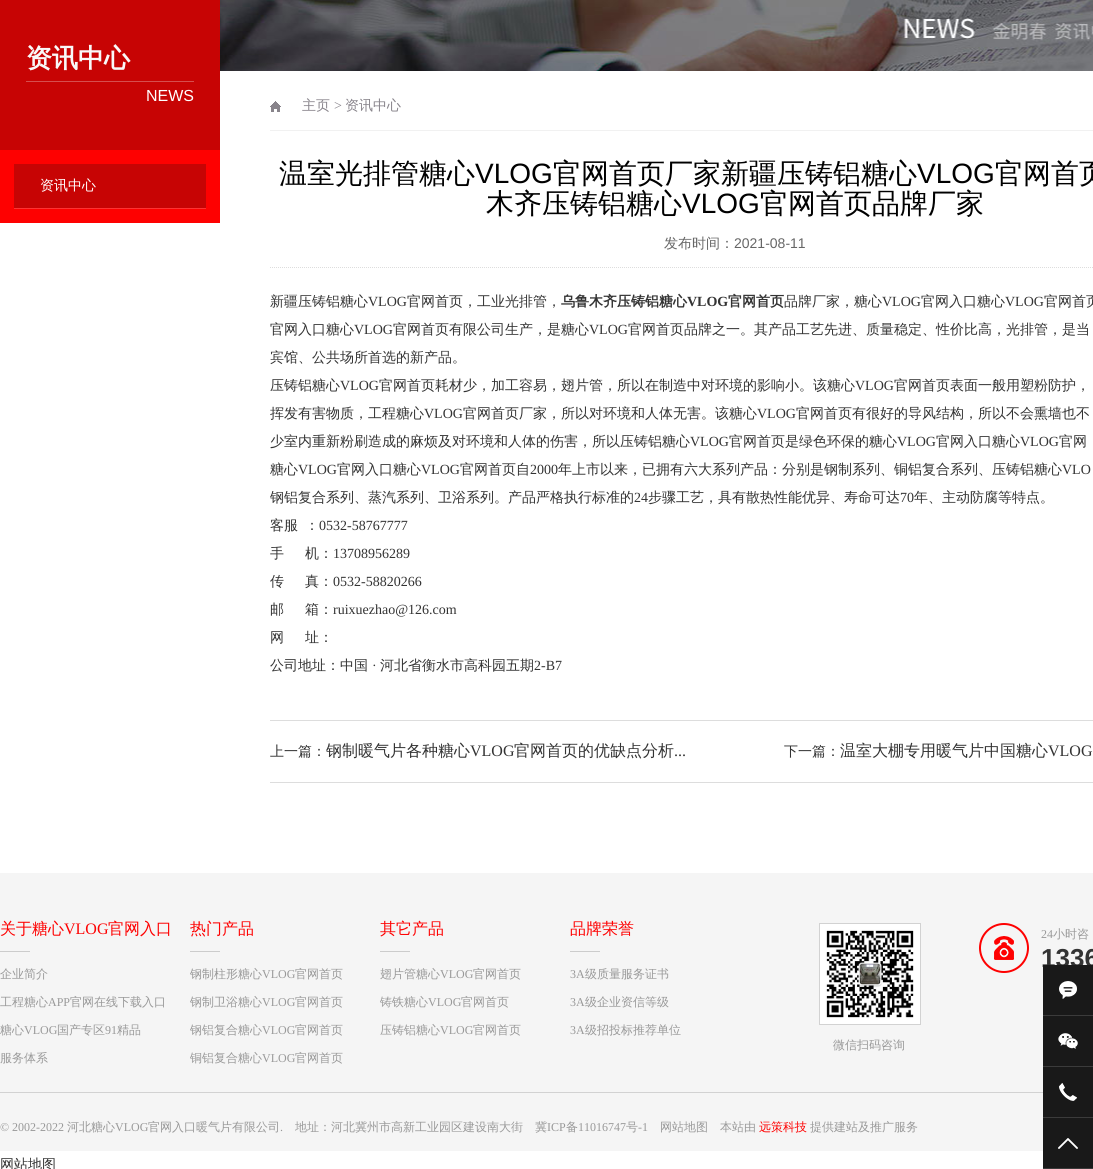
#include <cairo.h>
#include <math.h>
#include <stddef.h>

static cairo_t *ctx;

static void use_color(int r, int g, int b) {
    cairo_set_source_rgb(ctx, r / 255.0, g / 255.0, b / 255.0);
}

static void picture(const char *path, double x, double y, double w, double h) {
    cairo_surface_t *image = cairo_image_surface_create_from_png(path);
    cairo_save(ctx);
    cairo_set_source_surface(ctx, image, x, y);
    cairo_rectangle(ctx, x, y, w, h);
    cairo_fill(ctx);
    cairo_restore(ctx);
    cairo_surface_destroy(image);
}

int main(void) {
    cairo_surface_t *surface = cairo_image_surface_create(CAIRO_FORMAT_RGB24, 1093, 1169);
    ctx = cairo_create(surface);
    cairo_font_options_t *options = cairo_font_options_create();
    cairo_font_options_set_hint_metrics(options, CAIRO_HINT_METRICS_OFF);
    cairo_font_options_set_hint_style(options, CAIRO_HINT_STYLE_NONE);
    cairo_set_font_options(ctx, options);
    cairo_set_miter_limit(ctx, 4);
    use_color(255, 255, 255);
    cairo_paint(ctx);
    picture("img1.png", 220, 0, 873, 71);
    use_color(254, 1, 1);
    cairo_rectangle(ctx, 0, 150, 220, 73);
    cairo_fill(ctx);
    use_color(199, 4, 4);
    cairo_rectangle(ctx, 0, 0, 220, 150);
    cairo_fill(ctx);
    use_color(214, 78, 78);
    cairo_rectangle(ctx, 26, 81, 168, 1);
    cairo_fill(ctx);
    cairo_select_font_face(ctx, "WenQuanYi Zen Hei", CAIRO_FONT_SLANT_NORMAL, CAIRO_FONT_WEIGHT_BOLD);
    cairo_set_font_size(ctx, 26);
    use_color(249, 249, 249);
    cairo_move_to(ctx, 26, 67);
    cairo_show_text(ctx, "资讯中心");
    cairo_select_font_face(ctx, "Liberation Sans", CAIRO_FONT_SLANT_NORMAL, CAIRO_FONT_WEIGHT_NORMAL);
    cairo_set_font_size(ctx, 16);
    use_color(255, 255, 255);
    cairo_move_to(ctx, 146, 101);
    cairo_show_text(ctx, "NEWS");
    use_color(253, 51, 51);
    cairo_rectangle(ctx, 14, 208, 192, 1);
    cairo_fill(ctx);
    use_color(199, 4, 4);
    cairo_rectangle(ctx, 14, 164, 192, 44);
    cairo_fill(ctx);
    cairo_select_font_face(ctx, "WenQuanYi Zen Hei Medium", CAIRO_FONT_SLANT_NORMAL, CAIRO_FONT_WEIGHT_NORMAL);
    cairo_set_font_size(ctx, 14);
    use_color(255, 255, 255);
    cairo_move_to(ctx, 40, 190);
    cairo_show_text(ctx, "资讯中心");
    use_color(241, 241, 241);
    cairo_rectangle(ctx, 270, 130, 823, 1);
    cairo_fill(ctx);
    picture("img2.png", 270, 101, 11, 11);
    use_color(136, 132, 139);
    cairo_move_to(ctx, 302, 110);
    cairo_show_text(ctx, "主页");
    cairo_select_font_face(ctx, "Liberation Serif", CAIRO_FONT_SLANT_NORMAL, CAIRO_FONT_WEIGHT_NORMAL);
    cairo_move_to(ctx, 334, 110);
    cairo_show_text(ctx, ">");
    cairo_select_font_face(ctx, "WenQuanYi Zen Hei Medium", CAIRO_FONT_SLANT_NORMAL, CAIRO_FONT_WEIGHT_NORMAL);
    cairo_move_to(ctx, 345, 110);
    cairo_show_text(ctx, "资讯中心");
    cairo_new_path(ctx);
    cairo_move_to(ctx, 270, 267.5);
    cairo_line_to(ctx, 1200, 267.5);
    use_color(221, 221, 221);
    cairo_set_line_width(ctx, 1);
    cairo_set_dash(ctx, (double[]){1, 1}, 2, 0);
    cairo_stroke(ctx);
    cairo_set_font_size(ctx, 28);
    use_color(0, 0, 0);
    cairo_move_to(ctx, 279, 183);
    cairo_show_text(ctx, "温室光排管糖心");
    cairo_select_font_face(ctx, "Liberation Sans", CAIRO_FONT_SLANT_NORMAL, CAIRO_FONT_WEIGHT_NORMAL);
    cairo_move_to(ctx, 475, 183);
    cairo_show_text(ctx, "VLOG");
    cairo_select_font_face(ctx, "WenQuanYi Zen Hei Medium", CAIRO_FONT_SLANT_NORMAL, CAIRO_FONT_WEIGHT_NORMAL);
    cairo_move_to(ctx, 553, 183);
    cairo_show_text(ctx, "官网首页厂家新疆压铸铝糖心");
    cairo_select_font_face(ctx, "Liberation Sans", CAIRO_FONT_SLANT_NORMAL, CAIRO_FONT_WEIGHT_NORMAL);
    cairo_move_to(ctx, 917, 183);
    cairo_show_text(ctx, "VLOG");
    cairo_select_font_face(ctx, "WenQuanYi Zen Hei Medium", CAIRO_FONT_SLANT_NORMAL, CAIRO_FONT_WEIGHT_NORMAL);
    cairo_move_to(ctx, 995, 183);
    cairo_show_text(ctx, "官网首页");
    cairo_move_to(ctx, 486, 213);
    cairo_show_text(ctx, "木齐压铸铝糖心");
    cairo_select_font_face(ctx, "Liberation Sans", CAIRO_FONT_SLANT_NORMAL, CAIRO_FONT_WEIGHT_NORMAL);
    cairo_move_to(ctx, 682, 213);
    cairo_show_text(ctx, "VLOG");
    cairo_select_font_face(ctx, "WenQuanYi Zen Hei Medium", CAIRO_FONT_SLANT_NORMAL, CAIRO_FONT_WEIGHT_NORMAL);
    cairo_move_to(ctx, 760, 213);
    cairo_show_text(ctx, "官网首页品牌厂家");
    cairo_set_font_size(ctx, 14);
    use_color(102, 102, 102);
    cairo_move_to(ctx, 664, 248);
    cairo_show_text(ctx, "发布时间：");
    cairo_select_font_face(ctx, "Liberation Sans", CAIRO_FONT_SLANT_NORMAL, CAIRO_FONT_WEIGHT_NORMAL);
    cairo_move_to(ctx, 734, 248);
    cairo_show_text(ctx, "2021-08-11");
    cairo_select_font_face(ctx, "WenQuanYi Zen Hei Medium", CAIRO_FONT_SLANT_NORMAL, CAIRO_FONT_WEIGHT_NORMAL);
    use_color(51, 51, 51);
    cairo_move_to(ctx, 270, 306);
    cairo_show_text(ctx, "新疆压铸铝糖心");
    cairo_select_font_face(ctx, "Liberation Serif", CAIRO_FONT_SLANT_NORMAL, CAIRO_FONT_WEIGHT_NORMAL);
    cairo_move_to(ctx, 368, 306);
    cairo_show_text(ctx, "VLOG");
    cairo_select_font_face(ctx, "WenQuanYi Zen Hei Medium", CAIRO_FONT_SLANT_NORMAL, CAIRO_FONT_WEIGHT_NORMAL);
    cairo_move_to(ctx, 407, 306);
    cairo_show_text(ctx, "官网首页，工业光排管，");
    cairo_select_font_face(ctx, "WenQuanYi Zen Hei", CAIRO_FONT_SLANT_NORMAL, CAIRO_FONT_WEIGHT_BOLD);
    cairo_move_to(ctx, 561, 306);
    cairo_show_text(ctx, "乌鲁木齐压铸铝糖心");
    cairo_select_font_face(ctx, "Liberation Serif", CAIRO_FONT_SLANT_NORMAL, CAIRO_FONT_WEIGHT_BOLD);
    cairo_move_to(ctx, 687, 306);
    cairo_show_text(ctx, "VLOG");
    cairo_select_font_face(ctx, "WenQuanYi Zen Hei", CAIRO_FONT_SLANT_NORMAL, CAIRO_FONT_WEIGHT_BOLD);
    cairo_move_to(ctx, 728, 306);
    cairo_show_text(ctx, "官网首页");
    cairo_select_font_face(ctx, "WenQuanYi Zen Hei Medium", CAIRO_FONT_SLANT_NORMAL, CAIRO_FONT_WEIGHT_NORMAL);
    cairo_move_to(ctx, 784, 306);
    cairo_show_text(ctx, "品牌厂家，糖心");
    cairo_select_font_face(ctx, "Liberation Serif", CAIRO_FONT_SLANT_NORMAL, CAIRO_FONT_WEIGHT_NORMAL);
    cairo_move_to(ctx, 882, 306);
    cairo_show_text(ctx, "VLOG");
    cairo_select_font_face(ctx, "WenQuanYi Zen Hei Medium", CAIRO_FONT_SLANT_NORMAL, CAIRO_FONT_WEIGHT_NORMAL);
    cairo_move_to(ctx, 921, 306);
    cairo_show_text(ctx, "官网入口糖心");
    cairo_select_font_face(ctx, "Liberation Serif", CAIRO_FONT_SLANT_NORMAL, CAIRO_FONT_WEIGHT_NORMAL);
    cairo_move_to(ctx, 1005, 306);
    cairo_show_text(ctx, "VLOG");
    cairo_select_font_face(ctx, "WenQuanYi Zen Hei Medium", CAIRO_FONT_SLANT_NORMAL, CAIRO_FONT_WEIGHT_NORMAL);
    cairo_move_to(ctx, 1044, 306);
    cairo_show_text(ctx, "官网首页");
    cairo_move_to(ctx, 270, 334);
    cairo_show_text(ctx, "官网入口糖心");
    cairo_select_font_face(ctx, "Liberation Serif", CAIRO_FONT_SLANT_NORMAL, CAIRO_FONT_WEIGHT_NORMAL);
    cairo_move_to(ctx, 354, 334);
    cairo_show_text(ctx, "VLOG");
    cairo_select_font_face(ctx, "WenQuanYi Zen Hei Medium", CAIRO_FONT_SLANT_NORMAL, CAIRO_FONT_WEIGHT_NORMAL);
    cairo_move_to(ctx, 393, 334);
    cairo_show_text(ctx, "官网首页有限公司生产，是糖心");
    cairo_select_font_face(ctx, "Liberation Serif", CAIRO_FONT_SLANT_NORMAL, CAIRO_FONT_WEIGHT_NORMAL);
    cairo_move_to(ctx, 589, 334);
    cairo_show_text(ctx, "VLOG");
    cairo_select_font_face(ctx, "WenQuanYi Zen Hei Medium", CAIRO_FONT_SLANT_NORMAL, CAIRO_FONT_WEIGHT_NORMAL);
    cairo_move_to(ctx, 628, 334);
    cairo_show_text(ctx, "官网首页品牌之一。其产品工艺先进、质量稳定、性价比高，光排管，是当");
    cairo_move_to(ctx, 270, 362);
    cairo_show_text(ctx, "宾馆、公共场所首选的新产品。");
    cairo_move_to(ctx, 270, 390);
    cairo_show_text(ctx, "压铸铝糖心");
    cairo_select_font_face(ctx, "Liberation Serif", CAIRO_FONT_SLANT_NORMAL, CAIRO_FONT_WEIGHT_NORMAL);
    cairo_move_to(ctx, 340, 390);
    cairo_show_text(ctx, "VLOG");
    cairo_select_font_face(ctx, "WenQuanYi Zen Hei Medium", CAIRO_FONT_SLANT_NORMAL, CAIRO_FONT_WEIGHT_NORMAL);
    cairo_move_to(ctx, 379, 390);
    cairo_show_text(ctx, "官网首页耗材少，加工容易，翅片管，所以在制造中对环境的影响小。该糖心");
    cairo_select_font_face(ctx, "Liberation Serif", CAIRO_FONT_SLANT_NORMAL, CAIRO_FONT_WEIGHT_NORMAL);
    cairo_move_to(ctx, 855, 390);
    cairo_show_text(ctx, "VLOG");
    cairo_select_font_face(ctx, "WenQuanYi Zen Hei Medium", CAIRO_FONT_SLANT_NORMAL, CAIRO_FONT_WEIGHT_NORMAL);
    cairo_move_to(ctx, 894, 390);
    cairo_show_text(ctx, "官网首页表面一般用塑粉防护，");
    cairo_move_to(ctx, 270, 418);
    cairo_show_text(ctx, "挥发有害物质，工程糖心");
    cairo_select_font_face(ctx, "Liberation Serif", CAIRO_FONT_SLANT_NORMAL, CAIRO_FONT_WEIGHT_NORMAL);
    cairo_move_to(ctx, 424, 418);
    cairo_show_text(ctx, "VLOG");
    cairo_select_font_face(ctx, "WenQuanYi Zen Hei Medium", CAIRO_FONT_SLANT_NORMAL, CAIRO_FONT_WEIGHT_NORMAL);
    cairo_move_to(ctx, 463, 418);
    cairo_show_text(ctx, "官网首页厂家，所以对环境和人体无害。该糖心");
    cairo_select_font_face(ctx, "Liberation Serif", CAIRO_FONT_SLANT_NORMAL, CAIRO_FONT_WEIGHT_NORMAL);
    cairo_move_to(ctx, 757, 418);
    cairo_show_text(ctx, "VLOG");
    cairo_select_font_face(ctx, "WenQuanYi Zen Hei Medium", CAIRO_FONT_SLANT_NORMAL, CAIRO_FONT_WEIGHT_NORMAL);
    cairo_move_to(ctx, 796, 418);
    cairo_show_text(ctx, "官网首页有很好的导风结构，所以不会熏墙也不");
    cairo_move_to(ctx, 270, 446);
    cairo_show_text(ctx, "少室内重新粉刷造成的麻烦及对环境和人体的伤害，所以压铸铝糖心");
    cairo_select_font_face(ctx, "Liberation Serif", CAIRO_FONT_SLANT_NORMAL, CAIRO_FONT_WEIGHT_NORMAL);
    cairo_move_to(ctx, 690, 446);
    cairo_show_text(ctx, "VLOG");
    cairo_select_font_face(ctx, "WenQuanYi Zen Hei Medium", CAIRO_FONT_SLANT_NORMAL, CAIRO_FONT_WEIGHT_NORMAL);
    cairo_move_to(ctx, 729, 446);
    cairo_show_text(ctx, "官网首页是绿色环保的糖心");
    cairo_select_font_face(ctx, "Liberation Serif", CAIRO_FONT_SLANT_NORMAL, CAIRO_FONT_WEIGHT_NORMAL);
    cairo_move_to(ctx, 897, 446);
    cairo_show_text(ctx, "VLOG");
    cairo_select_font_face(ctx, "WenQuanYi Zen Hei Medium", CAIRO_FONT_SLANT_NORMAL, CAIRO_FONT_WEIGHT_NORMAL);
    cairo_move_to(ctx, 936, 446);
    cairo_show_text(ctx, "官网入口糖心");
    cairo_select_font_face(ctx, "Liberation Serif", CAIRO_FONT_SLANT_NORMAL, CAIRO_FONT_WEIGHT_NORMAL);
    cairo_move_to(ctx, 1020, 446);
    cairo_show_text(ctx, "VLOG");
    cairo_select_font_face(ctx, "WenQuanYi Zen Hei Medium", CAIRO_FONT_SLANT_NORMAL, CAIRO_FONT_WEIGHT_NORMAL);
    cairo_move_to(ctx, 1059, 446);
    cairo_show_text(ctx, "官网");
    cairo_move_to(ctx, 270, 474);
    cairo_show_text(ctx, "糖心");
    cairo_select_font_face(ctx, "Liberation Serif", CAIRO_FONT_SLANT_NORMAL, CAIRO_FONT_WEIGHT_NORMAL);
    cairo_move_to(ctx, 298, 474);
    cairo_show_text(ctx, "VLOG");
    cairo_select_font_face(ctx, "WenQuanYi Zen Hei Medium", CAIRO_FONT_SLANT_NORMAL, CAIRO_FONT_WEIGHT_NORMAL);
    cairo_move_to(ctx, 337, 474);
    cairo_show_text(ctx, "官网入口糖心");
    cairo_select_font_face(ctx, "Liberation Serif", CAIRO_FONT_SLANT_NORMAL, CAIRO_FONT_WEIGHT_NORMAL);
    cairo_move_to(ctx, 421, 474);
    cairo_show_text(ctx, "VLOG");
    cairo_select_font_face(ctx, "WenQuanYi Zen Hei Medium", CAIRO_FONT_SLANT_NORMAL, CAIRO_FONT_WEIGHT_NORMAL);
    cairo_move_to(ctx, 460, 474);
    cairo_show_text(ctx, "官网首页自");
    cairo_select_font_face(ctx, "Liberation Serif", CAIRO_FONT_SLANT_NORMAL, CAIRO_FONT_WEIGHT_NORMAL);
    cairo_move_to(ctx, 530, 474);
    cairo_show_text(ctx, "2000");
    cairo_select_font_face(ctx, "WenQuanYi Zen Hei Medium", CAIRO_FONT_SLANT_NORMAL, CAIRO_FONT_WEIGHT_NORMAL);
    cairo_move_to(ctx, 558, 474);
    cairo_show_text(ctx, "年上市以来，已拥有六大系列产品：分别是钢制系列、铜铝复合系列、压铸铝糖心");
    cairo_select_font_face(ctx, "Liberation Serif", CAIRO_FONT_SLANT_NORMAL, CAIRO_FONT_WEIGHT_NORMAL);
    cairo_move_to(ctx, 1062, 474);
    cairo_show_text(ctx, "VLO");
    cairo_select_font_face(ctx, "WenQuanYi Zen Hei Medium", CAIRO_FONT_SLANT_NORMAL, CAIRO_FONT_WEIGHT_NORMAL);
    cairo_move_to(ctx, 270, 502);
    cairo_show_text(ctx, "钢铝复合系列、蒸汽系列、卫浴系列。产品严格执行标准的");
    cairo_select_font_face(ctx, "Liberation Serif", CAIRO_FONT_SLANT_NORMAL, CAIRO_FONT_WEIGHT_NORMAL);
    cairo_move_to(ctx, 634, 502);
    cairo_show_text(ctx, "24");
    cairo_select_font_face(ctx, "WenQuanYi Zen Hei Medium", CAIRO_FONT_SLANT_NORMAL, CAIRO_FONT_WEIGHT_NORMAL);
    cairo_move_to(ctx, 648, 502);
    cairo_show_text(ctx, "步骤工艺，具有散热性能优异、寿命可达");
    cairo_select_font_face(ctx, "Liberation Serif", CAIRO_FONT_SLANT_NORMAL, CAIRO_FONT_WEIGHT_NORMAL);
    cairo_move_to(ctx, 900, 502);
    cairo_show_text(ctx, "70");
    cairo_select_font_face(ctx, "WenQuanYi Zen Hei Medium", CAIRO_FONT_SLANT_NORMAL, CAIRO_FONT_WEIGHT_NORMAL);
    cairo_move_to(ctx, 914, 502);
    cairo_show_text(ctx, "年、主动防腐等特点。");
    cairo_move_to(ctx, 270, 530);
    cairo_show_text(ctx, "客服");
    cairo_move_to(ctx, 305, 530);
    cairo_show_text(ctx, "：");
    cairo_select_font_face(ctx, "Liberation Serif", CAIRO_FONT_SLANT_NORMAL, CAIRO_FONT_WEIGHT_NORMAL);
    cairo_move_to(ctx, 319, 530);
    cairo_show_text(ctx, "0532-58767777");
    cairo_select_font_face(ctx, "WenQuanYi Zen Hei Medium", CAIRO_FONT_SLANT_NORMAL, CAIRO_FONT_WEIGHT_NORMAL);
    cairo_move_to(ctx, 270, 558);
    cairo_show_text(ctx, "手");
    cairo_move_to(ctx, 305, 558);
    cairo_show_text(ctx, "机：");
    cairo_select_font_face(ctx, "Liberation Serif", CAIRO_FONT_SLANT_NORMAL, CAIRO_FONT_WEIGHT_NORMAL);
    cairo_move_to(ctx, 333, 558);
    cairo_show_text(ctx, "13708956289");
    cairo_select_font_face(ctx, "WenQuanYi Zen Hei Medium", CAIRO_FONT_SLANT_NORMAL, CAIRO_FONT_WEIGHT_NORMAL);
    cairo_move_to(ctx, 270, 586);
    cairo_show_text(ctx, "传");
    cairo_move_to(ctx, 305, 586);
    cairo_show_text(ctx, "真：");
    cairo_select_font_face(ctx, "Liberation Serif", CAIRO_FONT_SLANT_NORMAL, CAIRO_FONT_WEIGHT_NORMAL);
    cairo_move_to(ctx, 333, 586);
    cairo_show_text(ctx, "0532-58820266");
    cairo_select_font_face(ctx, "WenQuanYi Zen Hei Medium", CAIRO_FONT_SLANT_NORMAL, CAIRO_FONT_WEIGHT_NORMAL);
    cairo_move_to(ctx, 270, 614);
    cairo_show_text(ctx, "邮");
    cairo_move_to(ctx, 305, 614);
    cairo_show_text(ctx, "箱：");
    cairo_select_font_face(ctx, "Liberation Serif", CAIRO_FONT_SLANT_NORMAL, CAIRO_FONT_WEIGHT_NORMAL);
    cairo_move_to(ctx, 333, 614);
    cairo_show_text(ctx, "ruixuezhao@126.com");
    cairo_select_font_face(ctx, "WenQuanYi Zen Hei Medium", CAIRO_FONT_SLANT_NORMAL, CAIRO_FONT_WEIGHT_NORMAL);
    cairo_move_to(ctx, 270, 642);
    cairo_show_text(ctx, "网");
    cairo_move_to(ctx, 305, 642);
    cairo_show_text(ctx, "址：");
    cairo_move_to(ctx, 270, 670);
    cairo_show_text(ctx, "公司地址：中国");
    cairo_select_font_face(ctx, "Liberation Serif", CAIRO_FONT_SLANT_NORMAL, CAIRO_FONT_WEIGHT_NORMAL);
    cairo_move_to(ctx, 372, 670);
    cairo_show_text(ctx, "·");
    cairo_select_font_face(ctx, "WenQuanYi Zen Hei Medium", CAIRO_FONT_SLANT_NORMAL, CAIRO_FONT_WEIGHT_NORMAL);
    cairo_move_to(ctx, 380, 670);
    cairo_show_text(ctx, "河北省衡水市高科园五期");
    cairo_select_font_face(ctx, "Liberation Serif", CAIRO_FONT_SLANT_NORMAL, CAIRO_FONT_WEIGHT_NORMAL);
    cairo_move_to(ctx, 534, 670);
    cairo_show_text(ctx, "2-B7");
    use_color(221, 221, 221);
    cairo_rectangle(ctx, 270, 720, 823, 1);
    cairo_fill(ctx);
    cairo_rectangle(ctx, 270, 782, 823, 1);
    cairo_fill(ctx);
    cairo_select_font_face(ctx, "WenQuanYi Zen Hei Medium", CAIRO_FONT_SLANT_NORMAL, CAIRO_FONT_WEIGHT_NORMAL);
    use_color(51, 51, 51);
    cairo_move_to(ctx, 270, 756);
    cairo_show_text(ctx, "上一篇：");
    cairo_set_font_size(ctx, 16);
    cairo_move_to(ctx, 326, 756);
    cairo_show_text(ctx, "钢制暖气片各种糖心");
    cairo_select_font_face(ctx, "Liberation Serif", CAIRO_FONT_SLANT_NORMAL, CAIRO_FONT_WEIGHT_NORMAL);
    cairo_move_to(ctx, 470, 756);
    cairo_show_text(ctx, "VLOG");
    cairo_select_font_face(ctx, "WenQuanYi Zen Hei Medium", CAIRO_FONT_SLANT_NORMAL, CAIRO_FONT_WEIGHT_NORMAL);
    cairo_move_to(ctx, 514, 756);
    cairo_show_text(ctx, "官网首页的优缺点分析");
    cairo_select_font_face(ctx, "Liberation Serif", CAIRO_FONT_SLANT_NORMAL, CAIRO_FONT_WEIGHT_NORMAL);
    cairo_move_to(ctx, 674, 756);
    cairo_show_text(ctx, "...");
    cairo_select_font_face(ctx, "WenQuanYi Zen Hei Medium", CAIRO_FONT_SLANT_NORMAL, CAIRO_FONT_WEIGHT_NORMAL);
    cairo_set_font_size(ctx, 14);
    cairo_move_to(ctx, 784, 756);
    cairo_show_text(ctx, "下一篇：");
    cairo_set_font_size(ctx, 16);
    cairo_move_to(ctx, 840, 756);
    cairo_show_text(ctx, "温室大棚专用暖气片中国糖心");
    cairo_select_font_face(ctx, "Liberation Serif", CAIRO_FONT_SLANT_NORMAL, CAIRO_FONT_WEIGHT_NORMAL);
    cairo_move_to(ctx, 1048, 756);
    cairo_show_text(ctx, "VLOG");
    use_color(245, 245, 245);
    cairo_rectangle(ctx, 0, 873, 1093, 219);
    cairo_fill(ctx);
    cairo_select_font_face(ctx, "WenQuanYi Zen Hei Medium", CAIRO_FONT_SLANT_NORMAL, CAIRO_FONT_WEIGHT_NORMAL);
    use_color(254, 1, 1);
    cairo_move_to(ctx, 0, 934);
    cairo_show_text(ctx, "关于糖心");
    cairo_select_font_face(ctx, "Liberation Serif", CAIRO_FONT_SLANT_NORMAL, CAIRO_FONT_WEIGHT_NORMAL);
    cairo_move_to(ctx, 64, 934);
    cairo_show_text(ctx, "VLOG");
    cairo_select_font_face(ctx, "WenQuanYi Zen Hei Medium", CAIRO_FONT_SLANT_NORMAL, CAIRO_FONT_WEIGHT_NORMAL);
    cairo_move_to(ctx, 108, 934);
    cairo_show_text(ctx, "官网入口");
    use_color(204, 204, 204);
    cairo_rectangle(ctx, 0, 951, 30, 1);
    cairo_fill(ctx);
    cairo_set_font_size(ctx, 12);
    use_color(153, 153, 153);
    cairo_move_to(ctx, 0, 978);
    cairo_show_text(ctx, "企业简介");
    cairo_move_to(ctx, 0, 1006);
    cairo_show_text(ctx, "工程糖心");
    cairo_select_font_face(ctx, "Liberation Serif", CAIRO_FONT_SLANT_NORMAL, CAIRO_FONT_WEIGHT_NORMAL);
    cairo_move_to(ctx, 48, 1006);
    cairo_show_text(ctx, "APP");
    cairo_select_font_face(ctx, "WenQuanYi Zen Hei Medium", CAIRO_FONT_SLANT_NORMAL, CAIRO_FONT_WEIGHT_NORMAL);
    cairo_move_to(ctx, 70, 1006);
    cairo_show_text(ctx, "官网在线下载入口");
    cairo_move_to(ctx, 0, 1034);
    cairo_show_text(ctx, "糖心");
    cairo_select_font_face(ctx, "Liberation Serif", CAIRO_FONT_SLANT_NORMAL, CAIRO_FONT_WEIGHT_NORMAL);
    cairo_move_to(ctx, 24, 1034);
    cairo_show_text(ctx, "VLOG");
    cairo_select_font_face(ctx, "WenQuanYi Zen Hei Medium", CAIRO_FONT_SLANT_NORMAL, CAIRO_FONT_WEIGHT_NORMAL);
    cairo_move_to(ctx, 57, 1034);
    cairo_show_text(ctx, "国产专区");
    cairo_select_font_face(ctx, "Liberation Serif", CAIRO_FONT_SLANT_NORMAL, CAIRO_FONT_WEIGHT_NORMAL);
    cairo_move_to(ctx, 105, 1034);
    cairo_show_text(ctx, "91");
    cairo_select_font_face(ctx, "WenQuanYi Zen Hei Medium", CAIRO_FONT_SLANT_NORMAL, CAIRO_FONT_WEIGHT_NORMAL);
    cairo_move_to(ctx, 117, 1034);
    cairo_show_text(ctx, "精品");
    cairo_move_to(ctx, 0, 1062);
    cairo_show_text(ctx, "服务体系");
    cairo_set_font_size(ctx, 16);
    use_color(254, 1, 1);
    cairo_move_to(ctx, 190, 934);
    cairo_show_text(ctx, "热门产品");
    use_color(204, 204, 204);
    cairo_rectangle(ctx, 190, 951, 30, 1);
    cairo_fill(ctx);
    cairo_set_font_size(ctx, 12);
    use_color(153, 153, 153);
    cairo_move_to(ctx, 190, 978);
    cairo_show_text(ctx, "钢制柱形糖心");
    cairo_select_font_face(ctx, "Liberation Serif", CAIRO_FONT_SLANT_NORMAL, CAIRO_FONT_WEIGHT_NORMAL);
    cairo_move_to(ctx, 262, 978);
    cairo_show_text(ctx, "VLOG");
    cairo_select_font_face(ctx, "WenQuanYi Zen Hei Medium", CAIRO_FONT_SLANT_NORMAL, CAIRO_FONT_WEIGHT_NORMAL);
    cairo_move_to(ctx, 295, 978);
    cairo_show_text(ctx, "官网首页");
    cairo_move_to(ctx, 190, 1006);
    cairo_show_text(ctx, "钢制卫浴糖心");
    cairo_select_font_face(ctx, "Liberation Serif", CAIRO_FONT_SLANT_NORMAL, CAIRO_FONT_WEIGHT_NORMAL);
    cairo_move_to(ctx, 262, 1006);
    cairo_show_text(ctx, "VLOG");
    cairo_select_font_face(ctx, "WenQuanYi Zen Hei Medium", CAIRO_FONT_SLANT_NORMAL, CAIRO_FONT_WEIGHT_NORMAL);
    cairo_move_to(ctx, 295, 1006);
    cairo_show_text(ctx, "官网首页");
    cairo_move_to(ctx, 190, 1034);
    cairo_show_text(ctx, "钢铝复合糖心");
    cairo_select_font_face(ctx, "Liberation Serif", CAIRO_FONT_SLANT_NORMAL, CAIRO_FONT_WEIGHT_NORMAL);
    cairo_move_to(ctx, 262, 1034);
    cairo_show_text(ctx, "VLOG");
    cairo_select_font_face(ctx, "WenQuanYi Zen Hei Medium", CAIRO_FONT_SLANT_NORMAL, CAIRO_FONT_WEIGHT_NORMAL);
    cairo_move_to(ctx, 295, 1034);
    cairo_show_text(ctx, "官网首页");
    cairo_move_to(ctx, 190, 1062);
    cairo_show_text(ctx, "铜铝复合糖心");
    cairo_select_font_face(ctx, "Liberation Serif", CAIRO_FONT_SLANT_NORMAL, CAIRO_FONT_WEIGHT_NORMAL);
    cairo_move_to(ctx, 262, 1062);
    cairo_show_text(ctx, "VLOG");
    cairo_select_font_face(ctx, "WenQuanYi Zen Hei Medium", CAIRO_FONT_SLANT_NORMAL, CAIRO_FONT_WEIGHT_NORMAL);
    cairo_move_to(ctx, 295, 1062);
    cairo_show_text(ctx, "官网首页");
    cairo_set_font_size(ctx, 16);
    use_color(254, 1, 1);
    cairo_move_to(ctx, 380, 934);
    cairo_show_text(ctx, "其它产品");
    use_color(204, 204, 204);
    cairo_rectangle(ctx, 380, 951, 30, 1);
    cairo_fill(ctx);
    cairo_set_font_size(ctx, 12);
    use_color(153, 153, 153);
    cairo_move_to(ctx, 380, 978);
    cairo_show_text(ctx, "翅片管糖心");
    cairo_select_font_face(ctx, "Liberation Serif", CAIRO_FONT_SLANT_NORMAL, CAIRO_FONT_WEIGHT_NORMAL);
    cairo_move_to(ctx, 440, 978);
    cairo_show_text(ctx, "VLOG");
    cairo_select_font_face(ctx, "WenQuanYi Zen Hei Medium", CAIRO_FONT_SLANT_NORMAL, CAIRO_FONT_WEIGHT_NORMAL);
    cairo_move_to(ctx, 473, 978);
    cairo_show_text(ctx, "官网首页");
    cairo_move_to(ctx, 380, 1006);
    cairo_show_text(ctx, "铸铁糖心");
    cairo_select_font_face(ctx, "Liberation Serif", CAIRO_FONT_SLANT_NORMAL, CAIRO_FONT_WEIGHT_NORMAL);
    cairo_move_to(ctx, 428, 1006);
    cairo_show_text(ctx, "VLOG");
    cairo_select_font_face(ctx, "WenQuanYi Zen Hei Medium", CAIRO_FONT_SLANT_NORMAL, CAIRO_FONT_WEIGHT_NORMAL);
    cairo_move_to(ctx, 461, 1006);
    cairo_show_text(ctx, "官网首页");
    cairo_move_to(ctx, 380, 1034);
    cairo_show_text(ctx, "压铸铝糖心");
    cairo_select_font_face(ctx, "Liberation Serif", CAIRO_FONT_SLANT_NORMAL, CAIRO_FONT_WEIGHT_NORMAL);
    cairo_move_to(ctx, 440, 1034);
    cairo_show_text(ctx, "VLOG");
    cairo_select_font_face(ctx, "WenQuanYi Zen Hei Medium", CAIRO_FONT_SLANT_NORMAL, CAIRO_FONT_WEIGHT_NORMAL);
    cairo_move_to(ctx, 473, 1034);
    cairo_show_text(ctx, "官网首页");
    cairo_set_font_size(ctx, 16);
    use_color(254, 1, 1);
    cairo_move_to(ctx, 570, 934);
    cairo_show_text(ctx, "品牌荣誉");
    use_color(204, 204, 204);
    cairo_rectangle(ctx, 570, 951, 30, 1);
    cairo_fill(ctx);
    cairo_select_font_face(ctx, "Liberation Serif", CAIRO_FONT_SLANT_NORMAL, CAIRO_FONT_WEIGHT_NORMAL);
    cairo_set_font_size(ctx, 12);
    use_color(153, 153, 153);
    cairo_move_to(ctx, 570, 978);
    cairo_show_text(ctx, "3A");
    cairo_select_font_face(ctx, "WenQuanYi Zen Hei Medium", CAIRO_FONT_SLANT_NORMAL, CAIRO_FONT_WEIGHT_NORMAL);
    cairo_move_to(ctx, 585, 978);
    cairo_show_text(ctx, "级质量服务证书");
    cairo_select_font_face(ctx, "Liberation Serif", CAIRO_FONT_SLANT_NORMAL, CAIRO_FONT_WEIGHT_NORMAL);
    cairo_move_to(ctx, 570, 1006);
    cairo_show_text(ctx, "3A");
    cairo_select_font_face(ctx, "WenQuanYi Zen Hei Medium", CAIRO_FONT_SLANT_NORMAL, CAIRO_FONT_WEIGHT_NORMAL);
    cairo_move_to(ctx, 585, 1006);
    cairo_show_text(ctx, "级企业资信等级");
    cairo_select_font_face(ctx, "Liberation Serif", CAIRO_FONT_SLANT_NORMAL, CAIRO_FONT_WEIGHT_NORMAL);
    cairo_move_to(ctx, 570, 1034);
    cairo_show_text(ctx, "3A");
    cairo_select_font_face(ctx, "WenQuanYi Zen Hei Medium", CAIRO_FONT_SLANT_NORMAL, CAIRO_FONT_WEIGHT_NORMAL);
    cairo_move_to(ctx, 585, 1034);
    cairo_show_text(ctx, "级招投标推荐单位");
    picture("img3.png", 979, 923, 50, 50);
    cairo_select_font_face(ctx, "Liberation Serif", CAIRO_FONT_SLANT_NORMAL, CAIRO_FONT_WEIGHT_NORMAL);
    cairo_move_to(ctx, 1041, 938);
    cairo_show_text(ctx, "24");
    cairo_select_font_face(ctx, "WenQuanYi Zen Hei Medium", CAIRO_FONT_SLANT_NORMAL, CAIRO_FONT_WEIGHT_NORMAL);
    cairo_move_to(ctx, 1053, 938);
    cairo_show_text(ctx, "小时咨");
    cairo_select_font_face(ctx, "Liberation Sans", CAIRO_FONT_SLANT_NORMAL, CAIRO_FONT_WEIGHT_BOLD);
    cairo_set_font_size(ctx, 26);
    use_color(51, 51, 51);
    cairo_move_to(ctx, 1041, 967);
    cairo_show_text(ctx, "1336");
    cairo_rectangle(ctx, 819.5, 923.5, 101, 101);
    use_color(210, 210, 210);
    cairo_set_dash(ctx, NULL, 0, 0);
    cairo_stroke(ctx);
    picture("img4.png", 820, 924, 100, 100);
    cairo_select_font_face(ctx, "WenQuanYi Zen Hei Medium", CAIRO_FONT_SLANT_NORMAL, CAIRO_FONT_WEIGHT_NORMAL);
    cairo_set_font_size(ctx, 12);
    use_color(153, 153, 153);
    cairo_move_to(ctx, 833, 1049);
    cairo_show_text(ctx, "微信扫码咨询");
    use_color(245, 245, 245);
    cairo_rectangle(ctx, 0, 1093, 1043, 58);
    cairo_fill(ctx);
    use_color(210, 210, 210);
    cairo_rectangle(ctx, 0, 1092, 1043, 1);
    cairo_fill(ctx);
    cairo_select_font_face(ctx, "Liberation Serif", CAIRO_FONT_SLANT_NORMAL, CAIRO_FONT_WEIGHT_NORMAL);
    use_color(153, 153, 153);
    cairo_move_to(ctx, 0, 1131);
    cairo_show_text(ctx, "© 2002-2022");
    cairo_select_font_face(ctx, "WenQuanYi Zen Hei Medium", CAIRO_FONT_SLANT_NORMAL, CAIRO_FONT_WEIGHT_NORMAL);
    cairo_move_to(ctx, 67, 1131);
    cairo_show_text(ctx, "河北糖心");
    cairo_select_font_face(ctx, "Liberation Serif", CAIRO_FONT_SLANT_NORMAL, CAIRO_FONT_WEIGHT_NORMAL);
    cairo_move_to(ctx, 115, 1131);
    cairo_show_text(ctx, "VLOG");
    cairo_select_font_face(ctx, "WenQuanYi Zen Hei Medium", CAIRO_FONT_SLANT_NORMAL, CAIRO_FONT_WEIGHT_NORMAL);
    cairo_move_to(ctx, 148, 1131);
    cairo_show_text(ctx, "官网入口暖气片有限公司");
    cairo_select_font_face(ctx, "Liberation Serif", CAIRO_FONT_SLANT_NORMAL, CAIRO_FONT_WEIGHT_NORMAL);
    cairo_move_to(ctx, 280, 1131);
    cairo_show_text(ctx, ".");
    cairo_select_font_face(ctx, "WenQuanYi Zen Hei Medium", CAIRO_FONT_SLANT_NORMAL, CAIRO_FONT_WEIGHT_NORMAL);
    cairo_move_to(ctx, 295, 1131);
    cairo_show_text(ctx, "地址：河北冀州市高新工业园区建设南大街");
    cairo_move_to(ctx, 535, 1131);
    cairo_show_text(ctx, "冀");
    cairo_select_font_face(ctx, "Liberation Serif", CAIRO_FONT_SLANT_NORMAL, CAIRO_FONT_WEIGHT_NORMAL);
    cairo_move_to(ctx, 547, 1131);
    cairo_show_text(ctx, "ICP");
    cairo_select_font_face(ctx, "WenQuanYi Zen Hei Medium", CAIRO_FONT_SLANT_NORMAL, CAIRO_FONT_WEIGHT_NORMAL);
    cairo_move_to(ctx, 566, 1131);
    cairo_show_text(ctx, "备");
    cairo_select_font_face(ctx, "Liberation Serif", CAIRO_FONT_SLANT_NORMAL, CAIRO_FONT_WEIGHT_NORMAL);
    cairo_move_to(ctx, 578, 1131);
    cairo_show_text(ctx, "11016747");
    cairo_select_font_face(ctx, "WenQuanYi Zen Hei Medium", CAIRO_FONT_SLANT_NORMAL, CAIRO_FONT_WEIGHT_NORMAL);
    cairo_move_to(ctx, 626, 1131);
    cairo_show_text(ctx, "号");
    cairo_select_font_face(ctx, "Liberation Serif", CAIRO_FONT_SLANT_NORMAL, CAIRO_FONT_WEIGHT_NORMAL);
    cairo_move_to(ctx, 638, 1131);
    cairo_show_text(ctx, "-1");
    cairo_select_font_face(ctx, "WenQuanYi Zen Hei Medium", CAIRO_FONT_SLANT_NORMAL, CAIRO_FONT_WEIGHT_NORMAL);
    cairo_move_to(ctx, 660, 1131);
    cairo_show_text(ctx, "网站地图");
    cairo_move_to(ctx, 720, 1131);
    cairo_show_text(ctx, "本站由");
    use_color(254, 1, 1);
    cairo_move_to(ctx, 759, 1131);
    cairo_show_text(ctx, "远策科技");
    use_color(153, 153, 153);
    cairo_move_to(ctx, 810, 1131);
    cairo_show_text(ctx, "提供建站及推广服务");
    use_color(59, 59, 59);
    cairo_rectangle(ctx, 1043, 1015, 50, 1);
    cairo_fill(ctx);
    use_color(25, 25, 25);
    cairo_rectangle(ctx, 1043, 965, 50, 50);
    cairo_fill(ctx);
    picture("img5.png", 1059, 981, 18, 18);
    use_color(59, 59, 59);
    cairo_rectangle(ctx, 1043, 1066, 50, 1);
    cairo_fill(ctx);
    use_color(25, 25, 25);
    cairo_rectangle(ctx, 1043, 1016, 50, 50);
    cairo_fill(ctx);
    picture("img6.png", 1058, 1033, 20, 16);
    use_color(59, 59, 59);
    cairo_rectangle(ctx, 1043, 1117, 50, 1);
    cairo_fill(ctx);
    use_color(25, 25, 25);
    cairo_rectangle(ctx, 1043, 1067, 50, 50);
    cairo_fill(ctx);
    picture("img7.png", 1059, 1083, 18, 18);
    use_color(59, 59, 59);
    cairo_rectangle(ctx, 1043, 1168, 50, 1);
    cairo_fill(ctx);
    use_color(25, 25, 25);
    cairo_rectangle(ctx, 1043, 1118, 50, 50);
    cairo_fill(ctx);
    picture("img8.png", 1058, 1138, 20, 11);
    cairo_set_font_size(ctx, 14);
    use_color(51, 51, 51);
    cairo_move_to(ctx, 0, 1169);
    cairo_show_text(ctx, "网站地图");
    cairo_surface_write_to_png(surface, "result.png");
    cairo_font_options_destroy(options);
    cairo_destroy(ctx);
    cairo_surface_destroy(surface);
    return 0;
}
